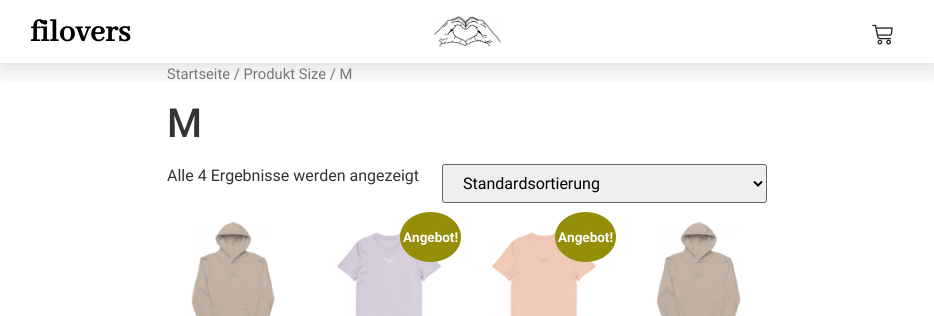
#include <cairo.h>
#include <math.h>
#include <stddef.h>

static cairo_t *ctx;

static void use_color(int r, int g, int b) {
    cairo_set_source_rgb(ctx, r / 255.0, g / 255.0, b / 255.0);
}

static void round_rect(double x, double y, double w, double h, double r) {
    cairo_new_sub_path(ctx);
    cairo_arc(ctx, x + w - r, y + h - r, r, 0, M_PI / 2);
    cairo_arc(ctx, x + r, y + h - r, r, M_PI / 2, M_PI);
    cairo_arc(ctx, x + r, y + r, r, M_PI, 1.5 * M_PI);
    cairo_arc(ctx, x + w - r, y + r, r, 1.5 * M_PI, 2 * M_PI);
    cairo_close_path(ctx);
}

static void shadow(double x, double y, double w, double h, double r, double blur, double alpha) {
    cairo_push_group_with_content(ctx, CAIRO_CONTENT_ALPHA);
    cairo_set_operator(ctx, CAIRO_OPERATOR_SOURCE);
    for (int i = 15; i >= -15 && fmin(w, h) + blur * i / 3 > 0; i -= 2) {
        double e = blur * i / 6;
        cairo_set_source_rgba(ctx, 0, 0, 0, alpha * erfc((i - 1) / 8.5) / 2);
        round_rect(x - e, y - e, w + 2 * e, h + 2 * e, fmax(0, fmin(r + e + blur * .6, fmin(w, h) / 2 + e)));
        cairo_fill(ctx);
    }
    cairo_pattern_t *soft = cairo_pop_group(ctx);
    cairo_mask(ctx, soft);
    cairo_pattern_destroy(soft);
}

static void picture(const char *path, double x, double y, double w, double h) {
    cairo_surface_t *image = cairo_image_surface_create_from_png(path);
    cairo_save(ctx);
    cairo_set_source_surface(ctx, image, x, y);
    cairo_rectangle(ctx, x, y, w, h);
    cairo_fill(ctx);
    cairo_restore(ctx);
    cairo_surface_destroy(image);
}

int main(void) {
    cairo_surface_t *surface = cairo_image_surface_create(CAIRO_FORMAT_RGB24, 934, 316);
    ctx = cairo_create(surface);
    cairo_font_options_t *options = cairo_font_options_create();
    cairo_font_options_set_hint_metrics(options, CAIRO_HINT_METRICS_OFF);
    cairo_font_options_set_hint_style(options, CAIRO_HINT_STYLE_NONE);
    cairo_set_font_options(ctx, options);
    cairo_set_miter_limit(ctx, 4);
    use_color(255, 255, 255);
    cairo_paint(ctx);
    cairo_save(ctx);
    cairo_rectangle(ctx, 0, 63, 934, 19);
    cairo_clip(ctx);
    use_color(0, 0, 0);
    shadow(0, 0, 934, 63, 0, 15, 0.19);
    cairo_restore(ctx);
    cairo_select_font_face(ctx, "Abhaya Libre", CAIRO_FONT_SLANT_NORMAL, CAIRO_FONT_WEIGHT_BOLD);
    cairo_set_font_size(ctx, 32);
    use_color(0, 0, 0);
    cairo_move_to(ctx, 30, 41);
    cairo_show_text(ctx, "filovers");
    picture("img1.png", 433, 16, 68, 31);
    picture("img2.png", 872, 24, 21, 21);
    cairo_select_font_face(ctx, "Roboto", CAIRO_FONT_SLANT_NORMAL, CAIRO_FONT_WEIGHT_NORMAL);
    cairo_set_font_size(ctx, 14.75);
    use_color(118, 118, 118);
    cairo_move_to(ctx, 167, 79);
    cairo_show_text(ctx, "Startseite / Produkt Size / M");
    cairo_select_font_face(ctx, "Roboto Medium", CAIRO_FONT_SLANT_NORMAL, CAIRO_FONT_WEIGHT_NORMAL);
    cairo_set_font_size(ctx, 40);
    use_color(51, 51, 51);
    cairo_move_to(ctx, 167, 137);
    cairo_show_text(ctx, "M");
    cairo_select_font_face(ctx, "Roboto", CAIRO_FONT_SLANT_NORMAL, CAIRO_FONT_WEIGHT_NORMAL);
    cairo_set_font_size(ctx, 16);
    cairo_move_to(ctx, 167, 181);
    cairo_show_text(ctx, "Alle 4 Ergebnisse werden angezeigt");
    use_color(239, 239, 239);
    round_rect(442.5, 164.5, 324, 38, 2.5);
    cairo_fill_preserve(ctx);
    use_color(102, 102, 102);
    cairo_set_line_width(ctx, 1);
    cairo_stroke(ctx);
    cairo_new_path(ctx);
    cairo_move_to(ctx, 754, 181.5);
    cairo_line_to(ctx, 758, 185.5);
    cairo_line_to(ctx, 762, 181.5);
    use_color(0, 0, 0);
    cairo_set_line_width(ctx, 2);
    cairo_stroke(ctx);
    cairo_move_to(ctx, 463, 189);
    cairo_show_text(ctx, "Standardsortierung");
    picture("img3.png", 191, 221, 84, 95);
    picture("img4.png", 337, 232, 105, 84);
    use_color(149, 142, 9);
    cairo_new_path(ctx);
    cairo_move_to(ctx, 430.5, 212);
    cairo_curve_to(ctx, 447.5, 212, 461, 223, 461, 237);
    cairo_curve_to(ctx, 461, 251, 447.5, 262, 430.5, 262);
    cairo_curve_to(ctx, 413.5, 262, 400, 251, 400, 237);
    cairo_curve_to(ctx, 400, 223, 413.5, 212, 430.5, 212);
    cairo_close_path(ctx);
    cairo_fill(ctx);
    cairo_select_font_face(ctx, "Roboto", CAIRO_FONT_SLANT_NORMAL, CAIRO_FONT_WEIGHT_BOLD);
    cairo_set_font_size(ctx, 13.5);
    use_color(255, 255, 255);
    cairo_move_to(ctx, 403, 242);
    cairo_show_text(ctx, "Angebot!");
    picture("img5.png", 492, 232, 104, 84);
    use_color(149, 142, 9);
    cairo_new_path(ctx);
    cairo_move_to(ctx, 585.5, 212);
    cairo_curve_to(ctx, 602.5, 212, 616, 223, 616, 237);
    cairo_curve_to(ctx, 616, 251, 602.5, 262, 585.5, 262);
    cairo_curve_to(ctx, 568.5, 262, 555, 251, 555, 237);
    cairo_curve_to(ctx, 555, 223, 568.5, 212, 585.5, 212);
    cairo_close_path(ctx);
    cairo_fill(ctx);
    use_color(255, 255, 255);
    cairo_move_to(ctx, 558, 242);
    cairo_show_text(ctx, "Angebot!");
    picture("img6.png", 656, 221, 85, 95);
    cairo_surface_write_to_png(surface, "result.png");
    cairo_font_options_destroy(options);
    cairo_destroy(ctx);
    cairo_surface_destroy(surface);
    return 0;
}
